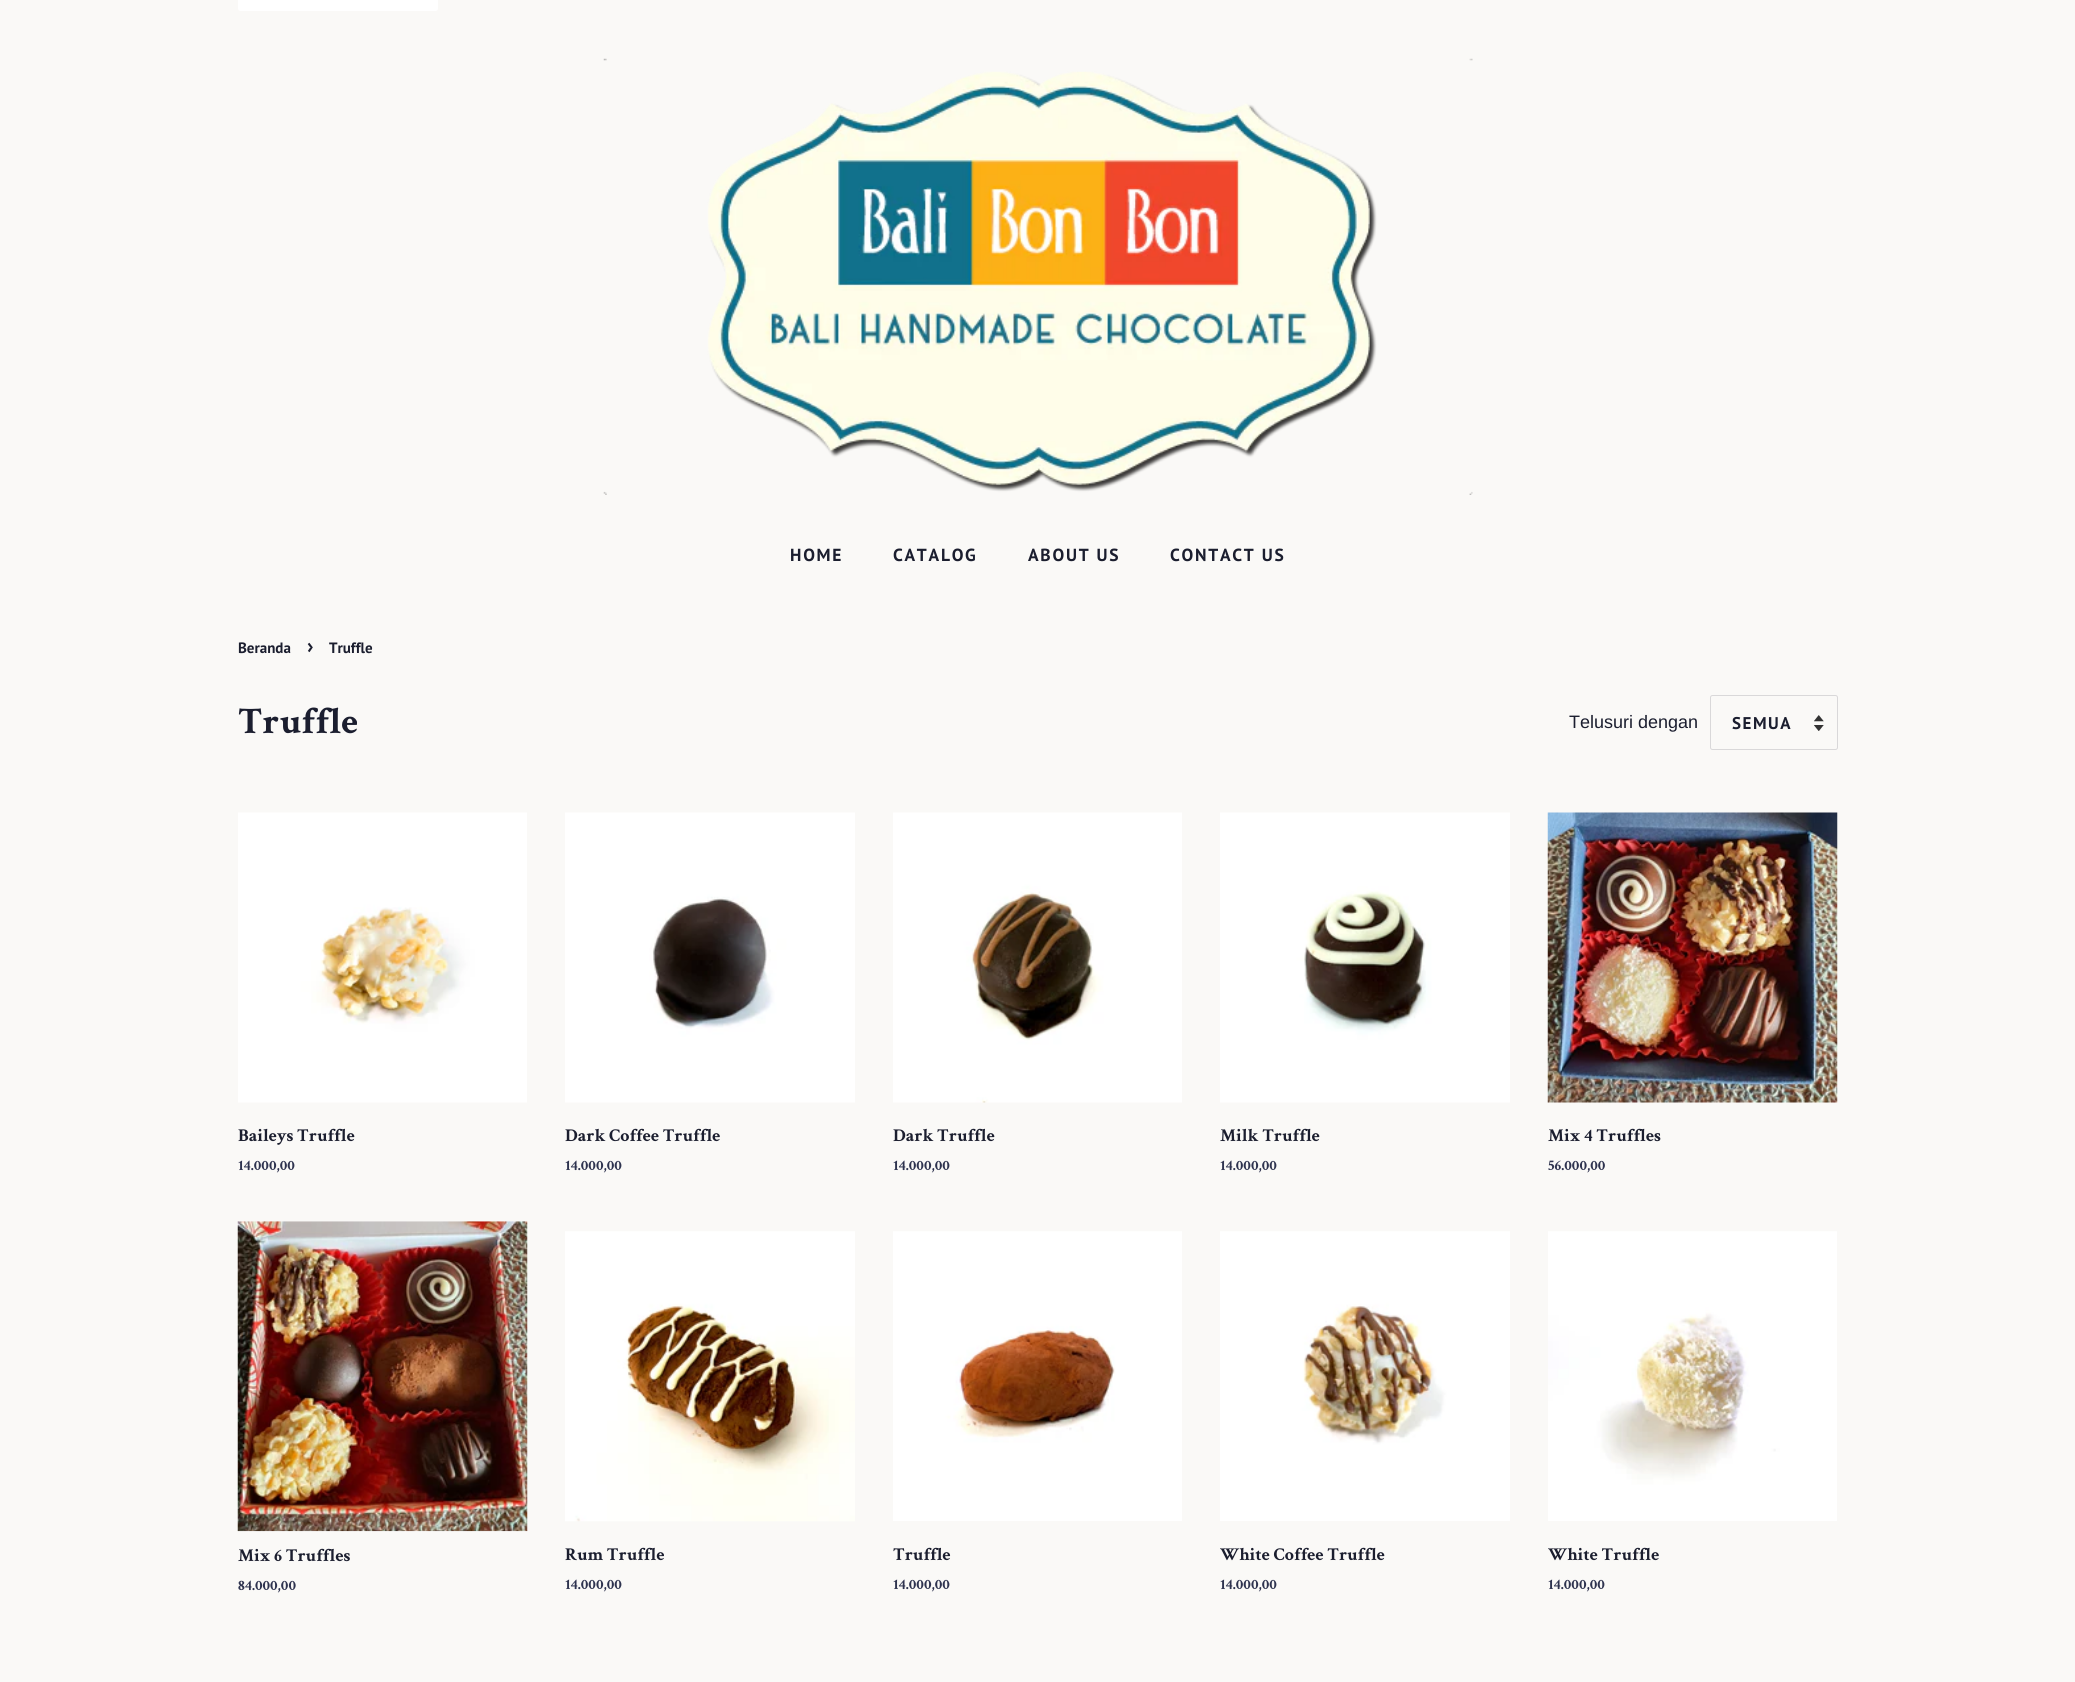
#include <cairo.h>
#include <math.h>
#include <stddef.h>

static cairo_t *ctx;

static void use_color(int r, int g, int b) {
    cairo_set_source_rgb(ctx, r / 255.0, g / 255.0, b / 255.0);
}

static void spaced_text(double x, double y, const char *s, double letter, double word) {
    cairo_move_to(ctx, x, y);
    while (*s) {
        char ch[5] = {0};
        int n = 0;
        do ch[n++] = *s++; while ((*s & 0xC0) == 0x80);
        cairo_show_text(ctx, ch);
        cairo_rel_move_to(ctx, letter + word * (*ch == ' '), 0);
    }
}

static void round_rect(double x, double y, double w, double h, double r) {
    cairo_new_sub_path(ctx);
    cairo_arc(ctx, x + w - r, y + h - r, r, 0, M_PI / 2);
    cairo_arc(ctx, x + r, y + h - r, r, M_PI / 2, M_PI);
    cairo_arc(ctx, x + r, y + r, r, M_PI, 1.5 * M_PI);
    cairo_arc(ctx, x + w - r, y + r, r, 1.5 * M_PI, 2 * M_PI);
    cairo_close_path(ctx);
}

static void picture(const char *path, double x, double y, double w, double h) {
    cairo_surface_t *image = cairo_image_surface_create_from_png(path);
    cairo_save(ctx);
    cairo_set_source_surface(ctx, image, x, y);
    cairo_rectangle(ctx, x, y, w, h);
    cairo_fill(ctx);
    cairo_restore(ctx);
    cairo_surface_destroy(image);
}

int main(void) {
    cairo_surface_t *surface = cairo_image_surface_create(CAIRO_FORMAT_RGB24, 2075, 1682);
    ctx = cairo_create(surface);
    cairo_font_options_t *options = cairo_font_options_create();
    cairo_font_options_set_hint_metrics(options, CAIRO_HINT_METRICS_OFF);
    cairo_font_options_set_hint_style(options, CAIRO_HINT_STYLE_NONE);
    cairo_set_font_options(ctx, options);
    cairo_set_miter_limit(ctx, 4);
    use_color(250, 249, 247);
    cairo_paint(ctx);
    use_color(255, 255, 255);
    round_rect(238, -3, 200, 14, 2.5);
    cairo_fill(ctx);
    picture("img1.png", 603, 58, 870, 437);
    cairo_select_font_face(ctx, "PT Sans", CAIRO_FONT_SLANT_NORMAL, CAIRO_FONT_WEIGHT_BOLD);
    cairo_set_font_size(ctx, 17.5);
    use_color(27, 30, 47);
    spaced_text(790, 561, "HOME", 1.75, 0);
    spaced_text(893, 561, "CATALOG", 1.75, 0);
    spaced_text(1028, 561, "ABOUT US", 1.75, 0);
    spaced_text(1170, 561, "CONTACT US", 1.75, 0);
    cairo_set_font_size(ctx, 15);
    cairo_move_to(ctx, 238, 653);
    cairo_show_text(ctx, "Beranda");
    cairo_set_font_size(ctx, 21);
    cairo_move_to(ctx, 307, 653);
    cairo_show_text(ctx, "›");
    cairo_set_font_size(ctx, 15);
    cairo_move_to(ctx, 329, 653);
    cairo_show_text(ctx, "Truffle");
    cairo_select_font_face(ctx, "Crimson Text", CAIRO_FONT_SLANT_NORMAL, CAIRO_FONT_WEIGHT_BOLD);
    cairo_set_font_size(ctx, 37.5);
    cairo_move_to(ctx, 238, 733);
    cairo_show_text(ctx, "Truffle");
    cairo_select_font_face(ctx, "Liberation Sans", CAIRO_FONT_SLANT_NORMAL, CAIRO_FONT_WEIGHT_NORMAL);
    cairo_set_font_size(ctx, 18);
    cairo_move_to(ctx, 1569, 728);
    cairo_show_text(ctx, "Telusuri dengan");
    picture("img2.png", 1814, 715, 10, 16);
    round_rect(1710.5, 695.5, 127, 54, 2);
    use_color(217, 216, 217);
    cairo_set_line_width(ctx, 1);
    cairo_stroke(ctx);
    cairo_select_font_face(ctx, "PT Sans", CAIRO_FONT_SLANT_NORMAL, CAIRO_FONT_WEIGHT_BOLD);
    cairo_set_font_size(ctx, 17);
    use_color(27, 30, 47);
    spaced_text(1732, 729, "SEMUA", 1.5, 0);
    picture("img3.png", 238, 812, 289, 291);
    cairo_select_font_face(ctx, "Crimson Text", CAIRO_FONT_SLANT_NORMAL, CAIRO_FONT_WEIGHT_BOLD);
    cairo_set_font_size(ctx, 18);
    cairo_move_to(ctx, 238, 1141);
    cairo_show_text(ctx, "Baileys Truffle");
    cairo_set_font_size(ctx, 15);
    use_color(46, 51, 79);
    cairo_move_to(ctx, 238, 1170);
    cairo_show_text(ctx, "14.000,00");
    picture("img4.png", 565, 812, 290, 291);
    cairo_set_font_size(ctx, 18);
    use_color(27, 30, 47);
    cairo_move_to(ctx, 565, 1141);
    cairo_show_text(ctx, "Dark Coffee Truffle");
    cairo_set_font_size(ctx, 15);
    use_color(46, 51, 79);
    cairo_move_to(ctx, 565, 1170);
    cairo_show_text(ctx, "14.000,00");
    picture("img5.png", 893, 812, 289, 291);
    cairo_set_font_size(ctx, 18);
    use_color(27, 30, 47);
    cairo_move_to(ctx, 893, 1141);
    cairo_show_text(ctx, "Dark Truffle");
    cairo_set_font_size(ctx, 15);
    use_color(46, 51, 79);
    cairo_move_to(ctx, 893, 1170);
    cairo_show_text(ctx, "14.000,00");
    picture("img6.png", 1220, 812, 290, 291);
    cairo_set_font_size(ctx, 18);
    use_color(27, 30, 47);
    cairo_move_to(ctx, 1220, 1141);
    cairo_show_text(ctx, "Milk Truffle");
    cairo_set_font_size(ctx, 15);
    use_color(46, 51, 79);
    cairo_move_to(ctx, 1220, 1170);
    cairo_show_text(ctx, "14.000,00");
    picture("img7.png", 1547, 812, 291, 291);
    cairo_set_font_size(ctx, 18);
    use_color(27, 30, 47);
    cairo_move_to(ctx, 1548, 1141);
    cairo_show_text(ctx, "Mix 4 Truffles");
    cairo_set_font_size(ctx, 15);
    use_color(46, 51, 79);
    cairo_move_to(ctx, 1548, 1170);
    cairo_show_text(ctx, "56.000,00");
    picture("img8.png", 237, 1221, 291, 311);
    cairo_set_font_size(ctx, 18);
    use_color(27, 30, 47);
    cairo_move_to(ctx, 238, 1561);
    cairo_show_text(ctx, "Mix 6 Truffles");
    cairo_set_font_size(ctx, 15);
    use_color(46, 51, 79);
    cairo_move_to(ctx, 238, 1590);
    cairo_show_text(ctx, "84.000,00");
    picture("img9.png", 565, 1231, 290, 291);
    cairo_set_font_size(ctx, 18);
    use_color(27, 30, 47);
    cairo_move_to(ctx, 565, 1560);
    cairo_show_text(ctx, "Rum Truffle");
    cairo_set_font_size(ctx, 15);
    use_color(46, 51, 79);
    cairo_move_to(ctx, 565, 1589);
    cairo_show_text(ctx, "14.000,00");
    picture("img10.png", 893, 1231, 289, 290);
    cairo_set_font_size(ctx, 18);
    use_color(27, 30, 47);
    cairo_move_to(ctx, 893, 1560);
    cairo_show_text(ctx, "Truffle");
    cairo_set_font_size(ctx, 15);
    use_color(46, 51, 79);
    cairo_move_to(ctx, 893, 1589);
    cairo_show_text(ctx, "14.000,00");
    picture("img11.png", 1220, 1231, 290, 290);
    cairo_set_font_size(ctx, 18);
    use_color(27, 30, 47);
    cairo_move_to(ctx, 1220, 1560);
    cairo_show_text(ctx, "White Coffee Truffle");
    cairo_set_font_size(ctx, 15);
    use_color(46, 51, 79);
    cairo_move_to(ctx, 1220, 1589);
    cairo_show_text(ctx, "14.000,00");
    picture("img12.png", 1548, 1231, 289, 290);
    cairo_set_font_size(ctx, 18);
    use_color(27, 30, 47);
    cairo_move_to(ctx, 1548, 1560);
    cairo_show_text(ctx, "White Truffle");
    cairo_set_font_size(ctx, 15);
    use_color(46, 51, 79);
    cairo_move_to(ctx, 1548, 1589);
    cairo_show_text(ctx, "14.000,00");
    cairo_surface_write_to_png(surface, "result.png");
    cairo_font_options_destroy(options);
    cairo_destroy(ctx);
    cairo_surface_destroy(surface);
    return 0;
}
